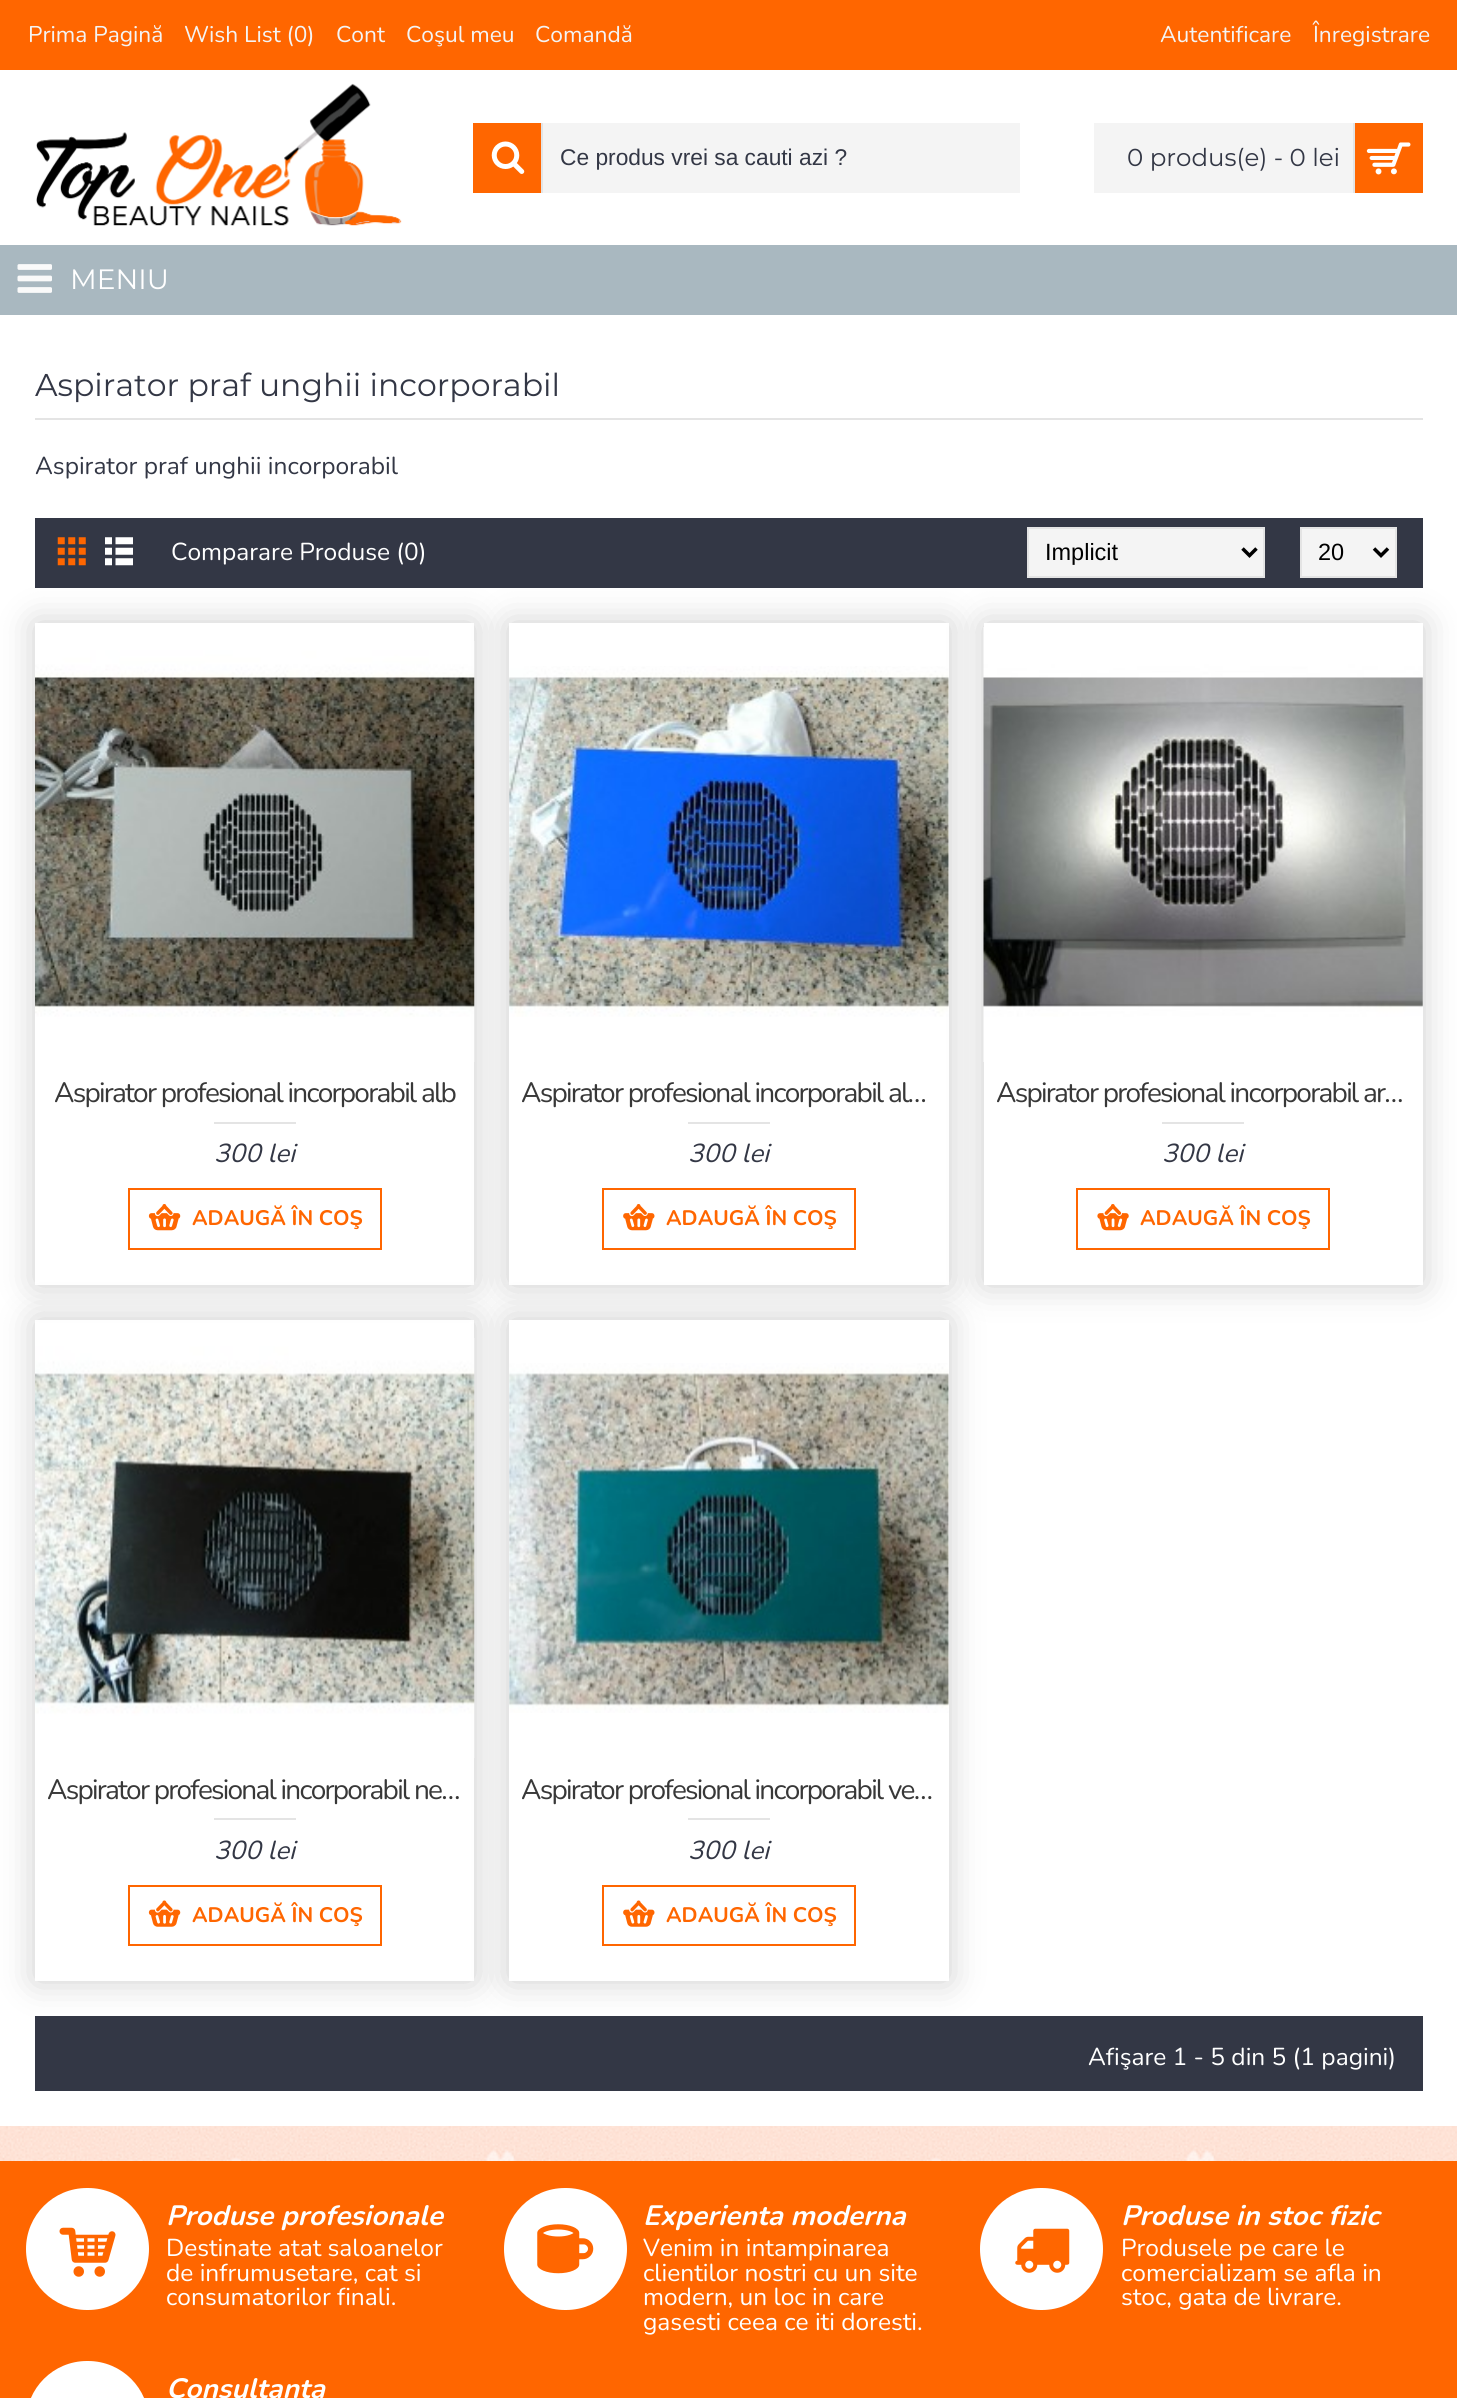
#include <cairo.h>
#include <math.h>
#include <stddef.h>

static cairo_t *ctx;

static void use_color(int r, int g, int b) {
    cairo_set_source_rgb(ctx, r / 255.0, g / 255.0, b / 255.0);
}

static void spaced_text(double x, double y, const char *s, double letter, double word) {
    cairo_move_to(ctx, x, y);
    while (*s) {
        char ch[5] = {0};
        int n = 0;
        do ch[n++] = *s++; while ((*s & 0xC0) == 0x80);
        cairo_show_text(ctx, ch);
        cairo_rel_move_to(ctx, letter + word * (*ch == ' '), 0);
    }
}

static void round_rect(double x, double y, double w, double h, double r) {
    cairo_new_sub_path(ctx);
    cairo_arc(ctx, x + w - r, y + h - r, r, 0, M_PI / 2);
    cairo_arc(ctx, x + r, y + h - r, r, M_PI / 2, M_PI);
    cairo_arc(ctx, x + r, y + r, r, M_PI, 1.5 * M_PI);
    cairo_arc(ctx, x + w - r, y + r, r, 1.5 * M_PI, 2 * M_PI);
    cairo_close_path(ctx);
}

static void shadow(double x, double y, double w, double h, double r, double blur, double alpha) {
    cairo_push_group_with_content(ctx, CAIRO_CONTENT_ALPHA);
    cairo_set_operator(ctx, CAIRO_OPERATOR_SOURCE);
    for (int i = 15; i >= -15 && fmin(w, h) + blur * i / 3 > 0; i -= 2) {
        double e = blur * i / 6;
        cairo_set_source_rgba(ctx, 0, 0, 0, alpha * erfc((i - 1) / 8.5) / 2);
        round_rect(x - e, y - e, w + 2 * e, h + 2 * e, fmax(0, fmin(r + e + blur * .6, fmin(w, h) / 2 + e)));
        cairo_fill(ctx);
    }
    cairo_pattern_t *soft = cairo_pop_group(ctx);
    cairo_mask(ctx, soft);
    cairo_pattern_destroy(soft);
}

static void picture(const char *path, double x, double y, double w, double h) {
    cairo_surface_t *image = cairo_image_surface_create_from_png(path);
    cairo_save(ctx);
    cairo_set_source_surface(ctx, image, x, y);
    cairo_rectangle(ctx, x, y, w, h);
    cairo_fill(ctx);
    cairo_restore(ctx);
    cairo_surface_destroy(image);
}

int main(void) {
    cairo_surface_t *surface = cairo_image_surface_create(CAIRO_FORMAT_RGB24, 1457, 2398);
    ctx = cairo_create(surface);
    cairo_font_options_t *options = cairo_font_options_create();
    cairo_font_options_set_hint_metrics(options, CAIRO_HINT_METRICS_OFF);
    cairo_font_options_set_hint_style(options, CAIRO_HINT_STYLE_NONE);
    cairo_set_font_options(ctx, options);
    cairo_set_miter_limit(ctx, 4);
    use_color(255, 255, 255);
    cairo_paint(ctx);
    picture("img1.png", 0, 2126, 1457, 35);
    use_color(255, 102, 0);
    cairo_rectangle(ctx, 0, 0, 1457, 70);
    cairo_fill(ctx);
    cairo_select_font_face(ctx, "Nunito", CAIRO_FONT_SLANT_NORMAL, CAIRO_FONT_WEIGHT_NORMAL);
    cairo_set_font_size(ctx, 22.75);
    use_color(244, 244, 244);
    cairo_move_to(ctx, 28, 42);
    cairo_show_text(ctx, "Prima Pagină");
    cairo_move_to(ctx, 184, 42);
    cairo_show_text(ctx, "Wish List (0)");
    cairo_move_to(ctx, 336, 42);
    cairo_show_text(ctx, "Cont");
    cairo_move_to(ctx, 406, 42);
    cairo_show_text(ctx, "Coşul meu");
    cairo_move_to(ctx, 535, 42);
    cairo_show_text(ctx, "Comandă");
    cairo_move_to(ctx, 1160, 42);
    cairo_show_text(ctx, "Autentificare");
    cairo_move_to(ctx, 1313, 42);
    cairo_show_text(ctx, "Înregistrare");
    picture("img2.png", 36, 83, 366, 143);
    use_color(255, 102, 0);
    cairo_rectangle(ctx, 473, 123, 68, 70);
    cairo_fill(ctx);
    use_color(228, 228, 228);
    cairo_rectangle(ctx, 541, 123, 2, 70);
    cairo_fill(ctx);
    picture("img3.png", 491, 141, 34, 33);
    use_color(244, 244, 244);
    cairo_rectangle(ctx, 543, 123, 477, 70);
    cairo_fill(ctx);
    cairo_select_font_face(ctx, "Liberation Sans", CAIRO_FONT_SLANT_NORMAL, CAIRO_FONT_WEIGHT_NORMAL);
    use_color(51, 55, 69);
    cairo_move_to(ctx, 560, 165);
    cairo_show_text(ctx, "Ce produs vrei sa cauti azi ?");
    use_color(244, 244, 244);
    cairo_rectangle(ctx, 1094, 123, 259, 70);
    cairo_fill(ctx);
    cairo_select_font_face(ctx, "Montserrat", CAIRO_FONT_SLANT_NORMAL, CAIRO_FONT_WEIGHT_NORMAL);
    cairo_set_font_size(ctx, 24.5);
    use_color(51, 55, 69);
    cairo_move_to(ctx, 1127, 166);
    cairo_show_text(ctx, "0 produs(e) - 0 lei");
    use_color(255, 102, 0);
    cairo_rectangle(ctx, 1355, 123, 68, 70);
    cairo_fill(ctx);
    use_color(228, 228, 228);
    cairo_rectangle(ctx, 1353, 123, 2, 70);
    cairo_fill(ctx);
    picture("img4.png", 1366, 142, 45, 33);
    use_color(169, 184, 192);
    cairo_rectangle(ctx, 0, 245, 1457, 70);
    cairo_fill(ctx);
    picture("img5.png", 17, 264, 35, 29);
    cairo_set_font_size(ctx, 28);
    use_color(255, 255, 255);
    cairo_move_to(ctx, 70, 289);
    cairo_show_text(ctx, "MENIU");
    use_color(228, 228, 228);
    cairo_rectangle(ctx, 35, 418, 1388, 2);
    cairo_fill(ctx);
    cairo_set_font_size(ctx, 31.5);
    use_color(51, 55, 69);
    cairo_move_to(ctx, 35, 396);
    cairo_show_text(ctx, "Aspirator praf unghii incorporabil");
    cairo_select_font_face(ctx, "Nunito", CAIRO_FONT_SLANT_NORMAL, CAIRO_FONT_WEIGHT_NORMAL);
    cairo_set_font_size(ctx, 24.5);
    cairo_move_to(ctx, 35, 474);
    cairo_show_text(ctx, "Aspirator praf unghii incorporabil");
    cairo_rectangle(ctx, 35, 518, 1388, 70);
    cairo_fill(ctx);
    picture("img6.png", 57, 537, 29, 29);
    picture("img7.png", 105, 537, 28, 29);
    use_color(255, 255, 255);
    cairo_move_to(ctx, 171, 560);
    cairo_show_text(ctx, "Comparare Produse (0)");
    use_color(244, 244, 244);
    cairo_rectangle(ctx, 1028, 528, 236, 49);
    cairo_fill_preserve(ctx);
    use_color(228, 228, 228);
    cairo_stroke(ctx);
    cairo_new_path(ctx);
    cairo_move_to(ctx, 1242.5, 548.5);
    cairo_line_to(ctx, 1249.5, 555.5);
    cairo_line_to(ctx, 1256.5, 548.5);
    use_color(0, 0, 0);
    cairo_set_line_width(ctx, 3.5);
    cairo_stroke(ctx);
    cairo_select_font_face(ctx, "Liberation Sans", CAIRO_FONT_SLANT_NORMAL, CAIRO_FONT_WEIGHT_NORMAL);
    cairo_set_font_size(ctx, 23.5);
    cairo_move_to(ctx, 1045, 560);
    cairo_show_text(ctx, "Implicit");
    use_color(244, 244, 244);
    cairo_rectangle(ctx, 1301, 528, 95, 49);
    cairo_fill_preserve(ctx);
    use_color(228, 228, 228);
    cairo_set_line_width(ctx, 2);
    cairo_stroke(ctx);
    cairo_new_path(ctx);
    cairo_move_to(ctx, 1374, 548.5);
    cairo_line_to(ctx, 1381, 555.5);
    cairo_line_to(ctx, 1388, 548.5);
    use_color(0, 0, 0);
    cairo_set_line_width(ctx, 3.5);
    cairo_stroke(ctx);
    cairo_move_to(ctx, 1318, 560);
    cairo_show_text(ctx, "20");
    use_color(0, 0, 0);
    shadow(35, 623, 439, 662, 0, 17.5, 0.2);
    use_color(255, 255, 255);
    cairo_rectangle(ctx, 35, 623, 439, 662);
    cairo_fill(ctx);
    picture("img8.png", 35, 641, 440, 421);
    cairo_select_font_face(ctx, "Nunito", CAIRO_FONT_SLANT_NORMAL, CAIRO_FONT_WEIGHT_NORMAL);
    cairo_set_font_size(ctx, 28);
    use_color(56, 56, 56);
    spaced_text(54, 1102, "Aspirator profesional incorporabil alb", -1.75, 0);
    use_color(228, 228, 228);
    cairo_rectangle(ctx, 214, 1122, 82, 2);
    cairo_fill(ctx);
    cairo_select_font_face(ctx, "Nunito", CAIRO_FONT_SLANT_ITALIC, CAIRO_FONT_WEIGHT_NORMAL);
    cairo_set_font_size(ctx, 26);
    use_color(51, 55, 69);
    cairo_move_to(ctx, 214, 1162);
    cairo_show_text(ctx, "300 lei");
    cairo_rectangle(ctx, 129, 1189, 252, 60);
    use_color(255, 102, 0);
    cairo_set_line_width(ctx, 2);
    cairo_stroke(ctx);
    picture("img9.png", 148, 1204, 33, 27);
    cairo_select_font_face(ctx, "Nunito", CAIRO_FONT_SLANT_NORMAL, CAIRO_FONT_WEIGHT_BOLD);
    cairo_set_font_size(ctx, 21);
    cairo_move_to(ctx, 192, 1225);
    cairo_show_text(ctx, "ADAUGĂ ÎN COŞ");
    use_color(0, 0, 0);
    shadow(509, 623, 440, 662, 0, 17.5, 0.2);
    use_color(255, 255, 255);
    cairo_rectangle(ctx, 509, 623, 440, 662);
    cairo_fill(ctx);
    picture("img10.png", 509, 666, 440, 351);
    cairo_select_font_face(ctx, "Nunito", CAIRO_FONT_SLANT_NORMAL, CAIRO_FONT_WEIGHT_NORMAL);
    cairo_set_font_size(ctx, 28);
    use_color(56, 56, 56);
    spaced_text(521, 1102, "Aspirator profesional incorporabil al…", -1.75, 0);
    use_color(228, 228, 228);
    cairo_rectangle(ctx, 688, 1122, 82, 2);
    cairo_fill(ctx);
    cairo_select_font_face(ctx, "Nunito", CAIRO_FONT_SLANT_ITALIC, CAIRO_FONT_WEIGHT_NORMAL);
    cairo_set_font_size(ctx, 26);
    use_color(51, 55, 69);
    cairo_move_to(ctx, 688, 1162);
    cairo_show_text(ctx, "300 lei");
    cairo_rectangle(ctx, 603, 1189, 252, 60);
    use_color(255, 102, 0);
    cairo_stroke(ctx);
    picture("img11.png", 623, 1204, 32, 27);
    cairo_select_font_face(ctx, "Nunito", CAIRO_FONT_SLANT_NORMAL, CAIRO_FONT_WEIGHT_BOLD);
    cairo_set_font_size(ctx, 21);
    cairo_move_to(ctx, 666, 1225);
    cairo_show_text(ctx, "ADAUGĂ ÎN COŞ");
    use_color(0, 0, 0);
    shadow(984, 623, 439, 662, 0, 17.5, 0.2);
    use_color(255, 255, 255);
    cairo_rectangle(ctx, 984, 623, 439, 662);
    cairo_fill(ctx);
    picture("img12.png", 983, 627, 440, 435);
    cairo_select_font_face(ctx, "Nunito", CAIRO_FONT_SLANT_NORMAL, CAIRO_FONT_WEIGHT_NORMAL);
    cairo_set_font_size(ctx, 28);
    use_color(56, 56, 56);
    spaced_text(996, 1102, "Aspirator profesional incorporabil ar…", -1.75, 0);
    use_color(228, 228, 228);
    cairo_rectangle(ctx, 1162, 1122, 82, 2);
    cairo_fill(ctx);
    cairo_select_font_face(ctx, "Nunito", CAIRO_FONT_SLANT_ITALIC, CAIRO_FONT_WEIGHT_NORMAL);
    cairo_set_font_size(ctx, 26);
    use_color(51, 55, 69);
    cairo_move_to(ctx, 1162, 1162);
    cairo_show_text(ctx, "300 lei");
    cairo_rectangle(ctx, 1077, 1189, 252, 60);
    use_color(255, 102, 0);
    cairo_stroke(ctx);
    picture("img13.png", 1097, 1204, 32, 27);
    cairo_select_font_face(ctx, "Nunito", CAIRO_FONT_SLANT_NORMAL, CAIRO_FONT_WEIGHT_BOLD);
    cairo_set_font_size(ctx, 21);
    cairo_move_to(ctx, 1140, 1225);
    cairo_show_text(ctx, "ADAUGĂ ÎN COŞ");
    use_color(51, 55, 69);
    cairo_rectangle(ctx, 35, 2016, 1388, 75);
    cairo_fill(ctx);
    cairo_save(ctx);
    cairo_set_fill_rule(ctx, CAIRO_FILL_RULE_EVEN_ODD);
    cairo_new_path(ctx);
    cairo_move_to(ctx, 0, 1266);
    cairo_line_to(ctx, 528, 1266);
    cairo_line_to(ctx, 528, 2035);
    cairo_line_to(ctx, 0, 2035);
    cairo_close_path(ctx);
    cairo_move_to(ctx, 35, 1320);
    cairo_line_to(ctx, 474, 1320);
    cairo_line_to(ctx, 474, 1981);
    cairo_line_to(ctx, 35, 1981);
    cairo_close_path(ctx);
    cairo_clip(ctx);
    use_color(0, 0, 0);
    shadow(35, 1320, 439, 661, 0, 17.5, 0.2);
    cairo_restore(ctx);
    picture("img14.png", 35, 1338, 440, 420);
    cairo_select_font_face(ctx, "Nunito", CAIRO_FONT_SLANT_NORMAL, CAIRO_FONT_WEIGHT_NORMAL);
    cairo_set_font_size(ctx, 28);
    use_color(56, 56, 56);
    spaced_text(47, 1799, "Aspirator profesional incorporabil ne…", -1.75, 0);
    use_color(228, 228, 228);
    cairo_rectangle(ctx, 214, 1818, 82, 2);
    cairo_fill(ctx);
    cairo_select_font_face(ctx, "Nunito", CAIRO_FONT_SLANT_ITALIC, CAIRO_FONT_WEIGHT_NORMAL);
    cairo_set_font_size(ctx, 26);
    use_color(51, 55, 69);
    cairo_move_to(ctx, 214, 1859);
    cairo_show_text(ctx, "300 lei");
    cairo_rectangle(ctx, 129, 1886, 252, 59);
    use_color(255, 102, 0);
    cairo_stroke(ctx);
    picture("img15.png", 148, 1900, 33, 27);
    cairo_select_font_face(ctx, "Nunito", CAIRO_FONT_SLANT_NORMAL, CAIRO_FONT_WEIGHT_BOLD);
    cairo_set_font_size(ctx, 21);
    cairo_move_to(ctx, 192, 1922);
    cairo_show_text(ctx, "ADAUGĂ ÎN COŞ");
    use_color(0, 0, 0);
    shadow(509, 1320, 440, 661, 0, 17.5, 0.2);
    use_color(255, 255, 255);
    cairo_rectangle(ctx, 509, 1320, 440, 661);
    cairo_fill(ctx);
    picture("img16.png", 509, 1363, 440, 350);
    cairo_select_font_face(ctx, "Nunito", CAIRO_FONT_SLANT_NORMAL, CAIRO_FONT_WEIGHT_NORMAL);
    cairo_set_font_size(ctx, 28);
    use_color(56, 56, 56);
    spaced_text(521, 1799, "Aspirator profesional incorporabil ve…", -1.75, 0);
    use_color(228, 228, 228);
    cairo_rectangle(ctx, 688, 1818, 82, 2);
    cairo_fill(ctx);
    cairo_select_font_face(ctx, "Nunito", CAIRO_FONT_SLANT_ITALIC, CAIRO_FONT_WEIGHT_NORMAL);
    cairo_set_font_size(ctx, 26);
    use_color(51, 55, 69);
    cairo_move_to(ctx, 688, 1859);
    cairo_show_text(ctx, "300 lei");
    cairo_rectangle(ctx, 603, 1886, 252, 59);
    use_color(255, 102, 0);
    cairo_stroke(ctx);
    picture("img17.png", 623, 1900, 32, 27);
    cairo_select_font_face(ctx, "Nunito", CAIRO_FONT_SLANT_NORMAL, CAIRO_FONT_WEIGHT_BOLD);
    cairo_set_font_size(ctx, 21);
    cairo_move_to(ctx, 666, 1922);
    cairo_show_text(ctx, "ADAUGĂ ÎN COŞ");
    cairo_select_font_face(ctx, "Nunito", CAIRO_FONT_SLANT_NORMAL, CAIRO_FONT_WEIGHT_NORMAL);
    cairo_set_font_size(ctx, 24.5);
    use_color(255, 255, 255);
    cairo_move_to(ctx, 1088, 2065);
    cairo_show_text(ctx, "Afişare 1 - 5 din 5 (1 pagini)");
    use_color(255, 102, 0);
    cairo_rectangle(ctx, 0, 2161, 1457, 237);
    cairo_fill(ctx);
    use_color(255, 255, 255);
    round_rect(26, 2188, 123, 122, 61);
    cairo_fill(ctx);
    picture("img18.png", 59, 2227, 57, 50);
    cairo_select_font_face(ctx, "Nunito", CAIRO_FONT_SLANT_ITALIC, CAIRO_FONT_WEIGHT_BOLD);
    cairo_set_font_size(ctx, 28);
    cairo_move_to(ctx, 166, 2225);
    cairo_show_text(ctx, "Produse profesionale");
    cairo_select_font_face(ctx, "Nunito", CAIRO_FONT_SLANT_NORMAL, CAIRO_FONT_WEIGHT_NORMAL);
    cairo_set_font_size(ctx, 24.5);
    cairo_move_to(ctx, 166, 2256);
    cairo_show_text(ctx, "Destinate atat saloanelor");
    cairo_move_to(ctx, 166, 2281);
    cairo_show_text(ctx, "de infrumusetare, cat si");
    cairo_move_to(ctx, 166, 2305);
    cairo_show_text(ctx, "consumatorilor finali.");
    round_rect(504, 2188, 123, 122, 61);
    cairo_fill(ctx);
    picture("img19.png", 537, 2224, 57, 50);
    cairo_select_font_face(ctx, "Nunito", CAIRO_FONT_SLANT_ITALIC, CAIRO_FONT_WEIGHT_BOLD);
    cairo_set_font_size(ctx, 28);
    cairo_move_to(ctx, 643, 2225);
    cairo_show_text(ctx, "Experienta moderna");
    cairo_select_font_face(ctx, "Nunito", CAIRO_FONT_SLANT_NORMAL, CAIRO_FONT_WEIGHT_NORMAL);
    cairo_set_font_size(ctx, 24.5);
    cairo_move_to(ctx, 643, 2256);
    cairo_show_text(ctx, "Venim in intampinarea");
    cairo_move_to(ctx, 643, 2281);
    cairo_show_text(ctx, "clientilor nostri cu un site");
    cairo_move_to(ctx, 643, 2305);
    cairo_show_text(ctx, "modern, un loc in care");
    cairo_move_to(ctx, 643, 2330);
    cairo_show_text(ctx, "gasesti ceea ce iti doresti.");
    round_rect(980, 2188, 123, 122, 61);
    cairo_fill(ctx);
    picture("img20.png", 1015, 2228, 55, 45);
    cairo_select_font_face(ctx, "Nunito", CAIRO_FONT_SLANT_ITALIC, CAIRO_FONT_WEIGHT_BOLD);
    cairo_set_font_size(ctx, 28);
    cairo_move_to(ctx, 1121, 2225);
    cairo_show_text(ctx, "Produse in stoc fizic");
    cairo_select_font_face(ctx, "Nunito", CAIRO_FONT_SLANT_NORMAL, CAIRO_FONT_WEIGHT_NORMAL);
    cairo_set_font_size(ctx, 24.5);
    cairo_move_to(ctx, 1121, 2256);
    cairo_show_text(ctx, "Produsele pe care le");
    cairo_move_to(ctx, 1121, 2281);
    cairo_show_text(ctx, "comercializam se afla in");
    cairo_move_to(ctx, 1121, 2305);
    cairo_show_text(ctx, "stoc, gata de livrare.");
    round_rect(26, 2361, 123, 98, 61);
    cairo_fill(ctx);
    cairo_select_font_face(ctx, "Nunito", CAIRO_FONT_SLANT_ITALIC, CAIRO_FONT_WEIGHT_BOLD);
    cairo_set_font_size(ctx, 28);
    cairo_move_to(ctx, 166, 2398);
    cairo_show_text(ctx, "Consultanta");
    cairo_surface_write_to_png(surface, "result.png");
    cairo_font_options_destroy(options);
    cairo_destroy(ctx);
    cairo_surface_destroy(surface);
    return 0;
}
